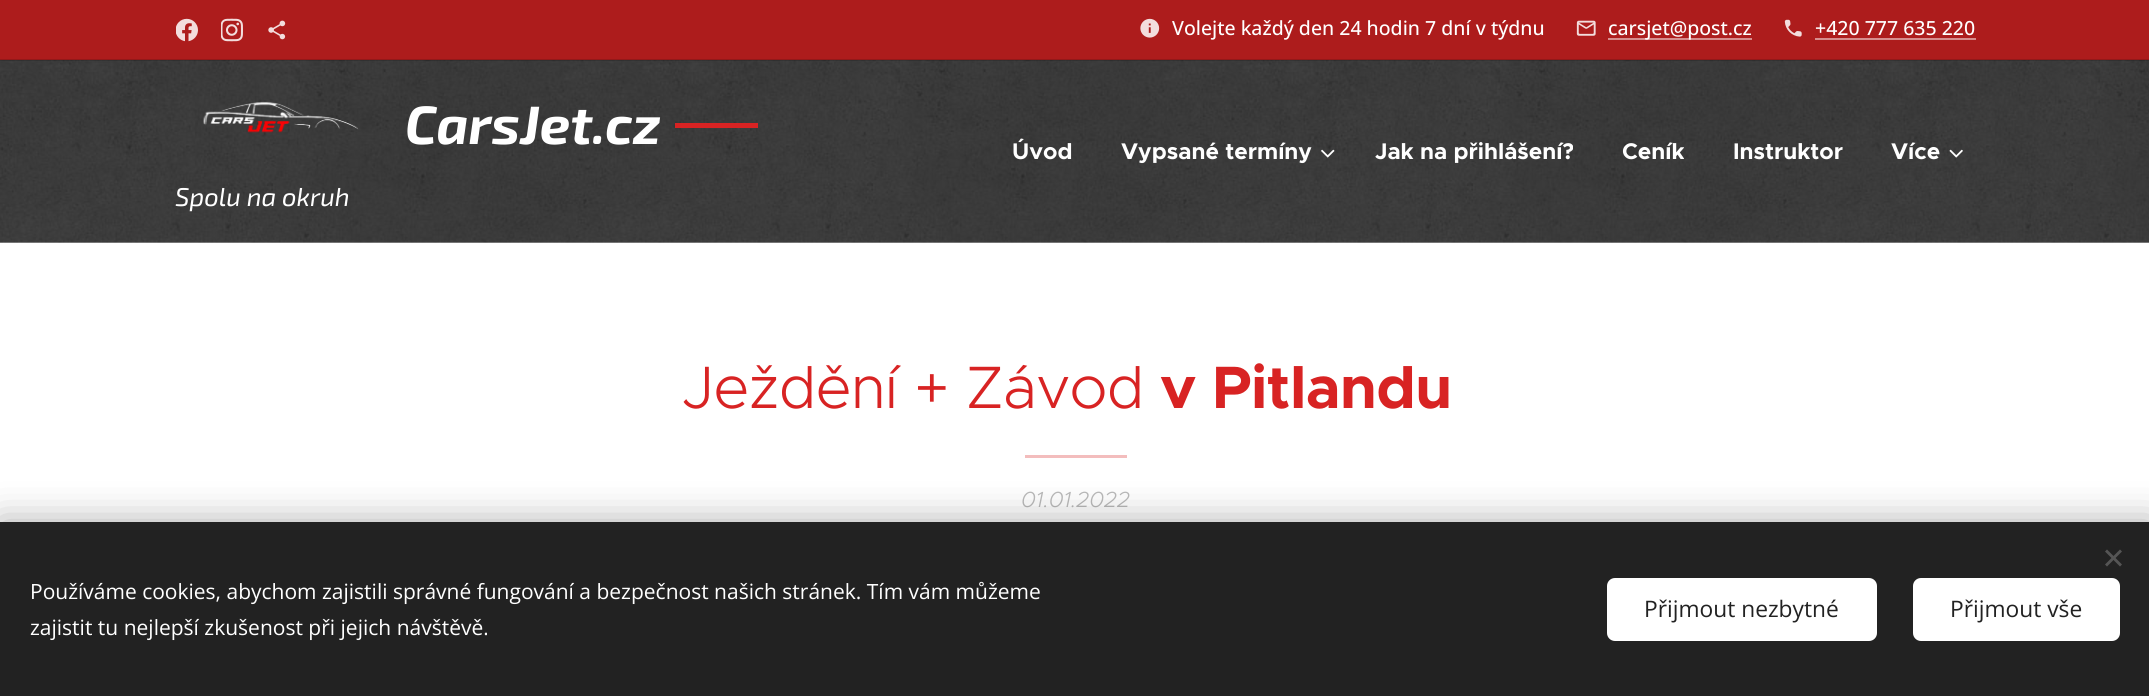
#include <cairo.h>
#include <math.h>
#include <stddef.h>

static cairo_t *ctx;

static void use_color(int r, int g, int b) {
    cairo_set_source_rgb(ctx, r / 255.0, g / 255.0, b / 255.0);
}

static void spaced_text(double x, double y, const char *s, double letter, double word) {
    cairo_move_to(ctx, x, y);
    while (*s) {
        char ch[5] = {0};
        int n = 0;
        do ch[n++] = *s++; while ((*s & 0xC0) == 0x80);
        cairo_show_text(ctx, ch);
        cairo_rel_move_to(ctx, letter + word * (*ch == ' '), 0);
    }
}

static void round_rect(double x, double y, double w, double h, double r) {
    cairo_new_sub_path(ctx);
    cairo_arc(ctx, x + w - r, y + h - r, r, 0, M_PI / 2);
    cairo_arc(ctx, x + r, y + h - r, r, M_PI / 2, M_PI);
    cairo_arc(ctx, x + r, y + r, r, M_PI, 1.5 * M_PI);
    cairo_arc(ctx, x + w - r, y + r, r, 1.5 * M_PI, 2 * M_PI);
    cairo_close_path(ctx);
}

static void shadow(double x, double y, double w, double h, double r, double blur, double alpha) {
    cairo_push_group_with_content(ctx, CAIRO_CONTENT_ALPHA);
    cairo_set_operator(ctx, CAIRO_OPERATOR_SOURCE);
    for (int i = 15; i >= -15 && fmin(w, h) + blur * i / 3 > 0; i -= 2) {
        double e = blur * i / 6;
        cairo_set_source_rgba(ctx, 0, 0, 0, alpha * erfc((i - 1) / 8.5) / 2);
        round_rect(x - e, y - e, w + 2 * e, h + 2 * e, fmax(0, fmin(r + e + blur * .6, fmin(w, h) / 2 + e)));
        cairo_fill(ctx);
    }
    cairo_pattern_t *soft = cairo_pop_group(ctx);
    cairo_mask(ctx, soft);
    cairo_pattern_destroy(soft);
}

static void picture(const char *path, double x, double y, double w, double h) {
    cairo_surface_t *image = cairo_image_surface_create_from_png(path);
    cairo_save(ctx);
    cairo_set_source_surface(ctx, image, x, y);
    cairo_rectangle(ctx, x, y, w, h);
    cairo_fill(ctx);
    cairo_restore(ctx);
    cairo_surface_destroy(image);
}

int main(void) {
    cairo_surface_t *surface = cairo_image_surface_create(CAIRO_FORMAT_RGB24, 2149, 696);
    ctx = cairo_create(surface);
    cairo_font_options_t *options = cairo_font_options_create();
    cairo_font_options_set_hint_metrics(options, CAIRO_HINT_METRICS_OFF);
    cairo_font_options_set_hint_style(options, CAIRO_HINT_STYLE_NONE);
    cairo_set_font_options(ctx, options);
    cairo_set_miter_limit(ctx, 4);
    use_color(255, 255, 255);
    cairo_paint(ctx);
    use_color(173, 28, 28);
    cairo_rectangle(ctx, 0, 0, 2149, 60);
    cairo_fill(ctx);
    picture("img1.png", 176, 18, 22, 24);
    picture("img2.png", 221, 18, 22, 24);
    picture("img3.png", 268, 20, 18, 20);
    picture("img4.png", 1140, 18, 20, 20);
    cairo_select_font_face(ctx, "Open Sans Medium", CAIRO_FONT_SLANT_NORMAL, CAIRO_FONT_WEIGHT_NORMAL);
    cairo_set_font_size(ctx, 19.5);
    use_color(255, 255, 255);
    cairo_move_to(ctx, 1172, 35);
    cairo_show_text(ctx, "Volejte každý den 24 hodin 7 dní v týdnu");
    picture("img5.png", 1576, 20, 20, 16);
    use_color(214, 142, 142);
    cairo_rectangle(ctx, 1608, 38, 144, 2);
    cairo_fill(ctx);
    use_color(255, 255, 255);
    cairo_move_to(ctx, 1608, 35);
    cairo_show_text(ctx, "carsjet@post.cz");
    picture("img6.png", 1784, 19, 18, 18);
    cairo_move_to(ctx, 1815, 35);
    cairo_show_text(ctx, "+420 777 635 220");
    use_color(214, 142, 142);
    cairo_rectangle(ctx, 1815, 38, 161, 2);
    cairo_fill(ctx);
    picture("img7.png", 0, 60, 2149, 183);
    cairo_set_source_rgba(ctx, 0, 0, 0, 0.15);
    cairo_rectangle(ctx, 0, 59, 2149, 2);
    cairo_fill(ctx);
    picture("img8.png", 203, 101, 156, 32);
    cairo_select_font_face(ctx, "Exo 2", CAIRO_FONT_SLANT_ITALIC, CAIRO_FONT_WEIGHT_BOLD);
    cairo_set_font_size(ctx, 54);
    use_color(255, 255, 255);
    cairo_move_to(ctx, 405, 144);
    cairo_show_text(ctx, "CarsJet.cz");
    use_color(216, 35, 35);
    cairo_rectangle(ctx, 675, 123, 83, 5);
    cairo_fill(ctx);
    cairo_select_font_face(ctx, "Exo 2", CAIRO_FONT_SLANT_ITALIC, CAIRO_FONT_WEIGHT_NORMAL);
    cairo_set_font_size(ctx, 25.75);
    use_color(255, 255, 255);
    cairo_move_to(ctx, 175, 206);
    cairo_show_text(ctx, "Spolu na okruh");
    cairo_select_font_face(ctx, "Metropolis", CAIRO_FONT_SLANT_NORMAL, CAIRO_FONT_WEIGHT_BOLD);
    cairo_set_font_size(ctx, 22.75);
    cairo_move_to(ctx, 1012, 159);
    cairo_show_text(ctx, "Úvod");
    cairo_move_to(ctx, 1121, 159);
    cairo_show_text(ctx, "Vypsané termíny");
    picture("img9.png", 1321, 149, 14, 9);
    cairo_move_to(ctx, 1375, 159);
    cairo_show_text(ctx, "Jak na přihlášení?");
    cairo_move_to(ctx, 1622, 159);
    cairo_show_text(ctx, "Ceník");
    cairo_move_to(ctx, 1733, 159);
    cairo_show_text(ctx, "Instruktor");
    cairo_move_to(ctx, 1891, 159);
    cairo_show_text(ctx, "Více");
    picture("img10.png", 1949, 149, 14, 9);
    cairo_set_source_rgba(ctx, 1, 1, 1, 0.3);
    cairo_rectangle(ctx, 0, 242, 2149, 1);
    cairo_fill(ctx);
    cairo_select_font_face(ctx, "Metropolis Light", CAIRO_FONT_SLANT_NORMAL, CAIRO_FONT_WEIGHT_NORMAL);
    cairo_set_font_size(ctx, 60);
    use_color(216, 35, 35);
    spaced_text(682, 408, "Ježdění + Závod", -0.6, 0);
    cairo_select_font_face(ctx, "Metropolis", CAIRO_FONT_SLANT_NORMAL, CAIRO_FONT_WEIGHT_BOLD);
    spaced_text(1160, 408, "v Pitlandu", -0.6, 0);
    use_color(243, 189, 189);
    cairo_rectangle(ctx, 1025, 455, 102, 3);
    cairo_fill(ctx);
    cairo_select_font_face(ctx, "Metropolis Light", CAIRO_FONT_SLANT_ITALIC, CAIRO_FONT_WEIGHT_NORMAL);
    cairo_set_font_size(ctx, 22);
    use_color(186, 186, 186);
    cairo_move_to(ctx, 1021, 507);
    cairo_show_text(ctx, "01.01.2022");
    use_color(0, 0, 0);
    shadow(0, 522, 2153, 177, 0, 19, 0.33);
    use_color(34, 34, 34);
    cairo_rectangle(ctx, 0, 522, 2149, 174);
    cairo_fill(ctx);
    use_color(85, 85, 85);
    cairo_new_path(ctx);
    cairo_move_to(ctx, 2105, 564.5);
    cairo_line_to(ctx, 2120, 549.5);
    cairo_line_to(ctx, 2122, 551.5);
    cairo_line_to(ctx, 2107, 566.5);
    cairo_close_path(ctx);
    cairo_fill(ctx);
    cairo_new_path(ctx);
    cairo_move_to(ctx, 2107, 549.5);
    cairo_line_to(ctx, 2122, 564.5);
    cairo_line_to(ctx, 2120, 566.5);
    cairo_line_to(ctx, 2105, 551.5);
    cairo_close_path(ctx);
    cairo_fill(ctx);
    cairo_select_font_face(ctx, "Open Sans", CAIRO_FONT_SLANT_NORMAL, CAIRO_FONT_WEIGHT_NORMAL);
    cairo_set_font_size(ctx, 21);
    use_color(255, 255, 255);
    cairo_move_to(ctx, 30, 599);
    cairo_show_text(ctx, "Používáme cookies, abychom zajistili správné fungování a bezpečnost našich stránek. Tím vám můžeme");
    cairo_move_to(ctx, 30, 635);
    cairo_show_text(ctx, "zajistit tu nejlepší zkušenost při jejich návštěvě.");
    round_rect(1607, 578, 270, 63, 8);
    cairo_fill(ctx);
    cairo_set_font_size(ctx, 22.75);
    use_color(34, 34, 34);
    cairo_move_to(ctx, 1644, 617);
    cairo_show_text(ctx, "Přijmout nezbytné");
    use_color(255, 255, 255);
    round_rect(1913, 578, 207, 63, 8);
    cairo_fill(ctx);
    use_color(34, 34, 34);
    cairo_move_to(ctx, 1950, 617);
    cairo_show_text(ctx, "Přijmout vše");
    cairo_surface_write_to_png(surface, "result.png");
    cairo_font_options_destroy(options);
    cairo_destroy(ctx);
    cairo_surface_destroy(surface);
    return 0;
}
